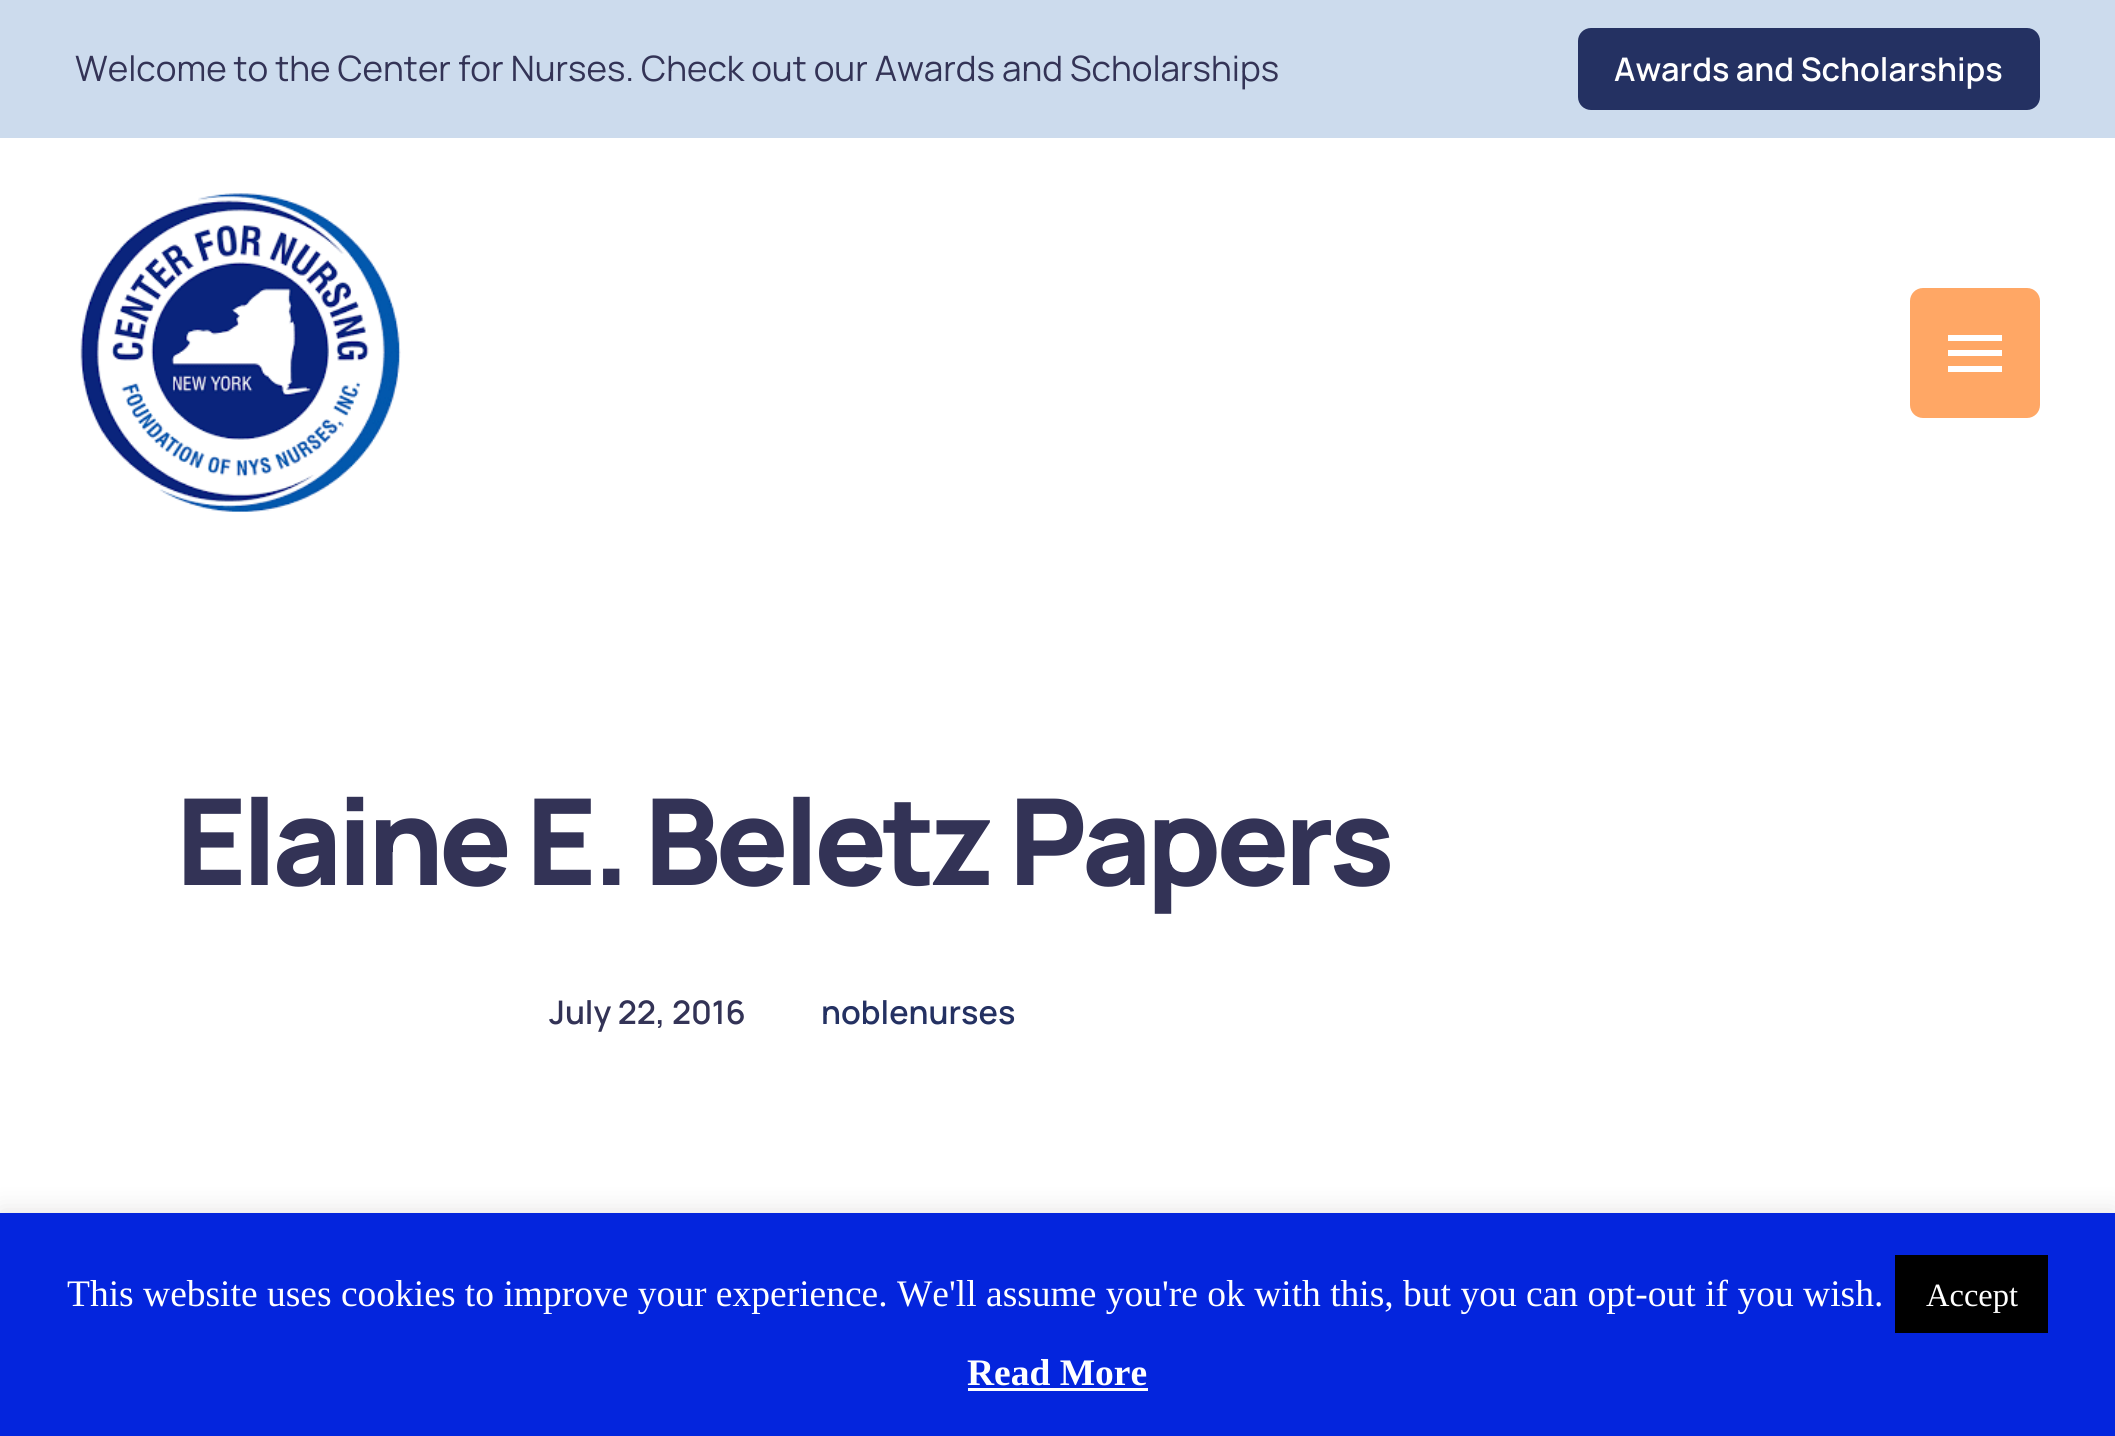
#include <cairo.h>
#include <math.h>
#include <stddef.h>

static cairo_t *ctx;

static void use_color(int r, int g, int b) {
    cairo_set_source_rgb(ctx, r / 255.0, g / 255.0, b / 255.0);
}

static void spaced_text(double x, double y, const char *s, double letter, double word) {
    cairo_move_to(ctx, x, y);
    while (*s) {
        char ch[5] = {0};
        int n = 0;
        do ch[n++] = *s++; while ((*s & 0xC0) == 0x80);
        cairo_show_text(ctx, ch);
        cairo_rel_move_to(ctx, letter + word * (*ch == ' '), 0);
    }
}

static void round_rect(double x, double y, double w, double h, double r) {
    cairo_new_sub_path(ctx);
    cairo_arc(ctx, x + w - r, y + h - r, r, 0, M_PI / 2);
    cairo_arc(ctx, x + r, y + h - r, r, M_PI / 2, M_PI);
    cairo_arc(ctx, x + r, y + r, r, M_PI, 1.5 * M_PI);
    cairo_arc(ctx, x + w - r, y + r, r, 1.5 * M_PI, 2 * M_PI);
    cairo_close_path(ctx);
}

static void shadow(double x, double y, double w, double h, double r, double blur, double alpha) {
    cairo_push_group_with_content(ctx, CAIRO_CONTENT_ALPHA);
    cairo_set_operator(ctx, CAIRO_OPERATOR_SOURCE);
    for (int i = 15; i >= -15 && fmin(w, h) + blur * i / 3 > 0; i -= 2) {
        double e = blur * i / 6;
        cairo_set_source_rgba(ctx, 0, 0, 0, alpha * erfc((i - 1) / 8.5) / 2);
        round_rect(x - e, y - e, w + 2 * e, h + 2 * e, fmax(0, fmin(r + e + blur * .6, fmin(w, h) / 2 + e)));
        cairo_fill(ctx);
    }
    cairo_pattern_t *soft = cairo_pop_group(ctx);
    cairo_mask(ctx, soft);
    cairo_pattern_destroy(soft);
}

static void picture(const char *path, double x, double y, double w, double h) {
    cairo_surface_t *image = cairo_image_surface_create_from_png(path);
    cairo_save(ctx);
    cairo_set_source_surface(ctx, image, x, y);
    cairo_rectangle(ctx, x, y, w, h);
    cairo_fill(ctx);
    cairo_restore(ctx);
    cairo_surface_destroy(image);
}

int main(void) {
    cairo_surface_t *surface = cairo_image_surface_create(CAIRO_FORMAT_RGB24, 2115, 1436);
    ctx = cairo_create(surface);
    cairo_font_options_t *options = cairo_font_options_create();
    cairo_font_options_set_hint_metrics(options, CAIRO_HINT_METRICS_OFF);
    cairo_font_options_set_hint_style(options, CAIRO_HINT_STYLE_NONE);
    cairo_set_font_options(ctx, options);
    cairo_set_miter_limit(ctx, 4);
    use_color(255, 255, 255);
    cairo_paint(ctx);
    use_color(204, 219, 237);
    cairo_rectangle(ctx, 0, 0, 2115, 138);
    cairo_fill(ctx);
    cairo_select_font_face(ctx, "Manrope", CAIRO_FONT_SLANT_NORMAL, CAIRO_FONT_WEIGHT_NORMAL);
    cairo_set_font_size(ctx, 35);
    use_color(51, 51, 86);
    cairo_move_to(ctx, 75, 81);
    cairo_show_text(ctx, "Welcome to the Center for Nurses. Check out our Awards and Scholarships");
    use_color(36, 49, 98);
    round_rect(1578, 28, 462, 82, 13);
    cairo_fill(ctx);
    cairo_select_font_face(ctx, "Manrope SemiBold", CAIRO_FONT_SLANT_NORMAL, CAIRO_FONT_WEIGHT_NORMAL);
    cairo_set_font_size(ctx, 32.5);
    use_color(255, 255, 255);
    cairo_move_to(ctx, 1614, 81);
    cairo_show_text(ctx, "Awards and Scholarships");
    picture("img1.png", 80, 193, 321, 319);
    use_color(255, 167, 101);
    round_rect(1910, 288, 130, 130, 13);
    cairo_fill(ctx);
    use_color(255, 255, 255);
    cairo_new_path(ctx);
    cairo_move_to(ctx, 2002, 366);
    cairo_line_to(ctx, 1948, 366);
    cairo_line_to(ctx, 1948, 372);
    cairo_line_to(ctx, 2002, 372);
    cairo_close_path(ctx);
    cairo_move_to(ctx, 2002, 350);
    cairo_line_to(ctx, 1948, 350);
    cairo_line_to(ctx, 1948, 356);
    cairo_line_to(ctx, 2002, 356);
    cairo_close_path(ctx);
    cairo_move_to(ctx, 2002, 335);
    cairo_line_to(ctx, 1948, 335);
    cairo_line_to(ctx, 1948, 341);
    cairo_line_to(ctx, 2002, 341);
    cairo_close_path(ctx);
    cairo_fill(ctx);
    cairo_select_font_face(ctx, "Manrope ExtraBold", CAIRO_FONT_SLANT_NORMAL, CAIRO_FONT_WEIGHT_NORMAL);
    cairo_set_font_size(ctx, 120);
    use_color(51, 51, 86);
    spaced_text(176, 885, "Elaine E. Beletz Papers", -5, 0);
    cairo_select_font_face(ctx, "Manrope SemiBold", CAIRO_FONT_SLANT_NORMAL, CAIRO_FONT_WEIGHT_NORMAL);
    cairo_set_font_size(ctx, 32.5);
    cairo_move_to(ctx, 549, 1024);
    cairo_show_text(ctx, "July 22, 2016");
    use_color(36, 49, 98);
    cairo_move_to(ctx, 821, 1024);
    cairo_show_text(ctx, "noblenurses");
    use_color(172, 171, 171);
    shadow(0, 1210, 2115, 225, 0, 12.5, 0.3);
    use_color(4, 37, 221);
    cairo_rectangle(ctx, 0, 1213, 2115, 223);
    cairo_fill(ctx);
    cairo_select_font_face(ctx, "Liberation Serif", CAIRO_FONT_SLANT_NORMAL, CAIRO_FONT_WEIGHT_NORMAL);
    cairo_set_font_size(ctx, 37.5);
    use_color(255, 255, 255);
    cairo_move_to(ctx, 67, 1306);
    cairo_show_text(ctx, "This website uses cookies to improve your experience. We'll assume you're ok with this, but you can opt-out if you wish.");
    use_color(0, 0, 0);
    cairo_rectangle(ctx, 1895, 1255, 153, 78);
    cairo_fill(ctx);
    cairo_set_font_size(ctx, 32.5);
    use_color(255, 255, 255);
    cairo_move_to(ctx, 1926, 1306);
    cairo_show_text(ctx, "Accept");
    cairo_select_font_face(ctx, "Liberation Serif", CAIRO_FONT_SLANT_NORMAL, CAIRO_FONT_WEIGHT_BOLD);
    cairo_set_font_size(ctx, 37.5);
    cairo_move_to(ctx, 967, 1385);
    cairo_show_text(ctx, "Read More");
    cairo_rectangle(ctx, 968, 1388, 180, 3);
    cairo_fill(ctx);
    cairo_surface_write_to_png(surface, "result.png");
    cairo_font_options_destroy(options);
    cairo_destroy(ctx);
    cairo_surface_destroy(surface);
    return 0;
}
